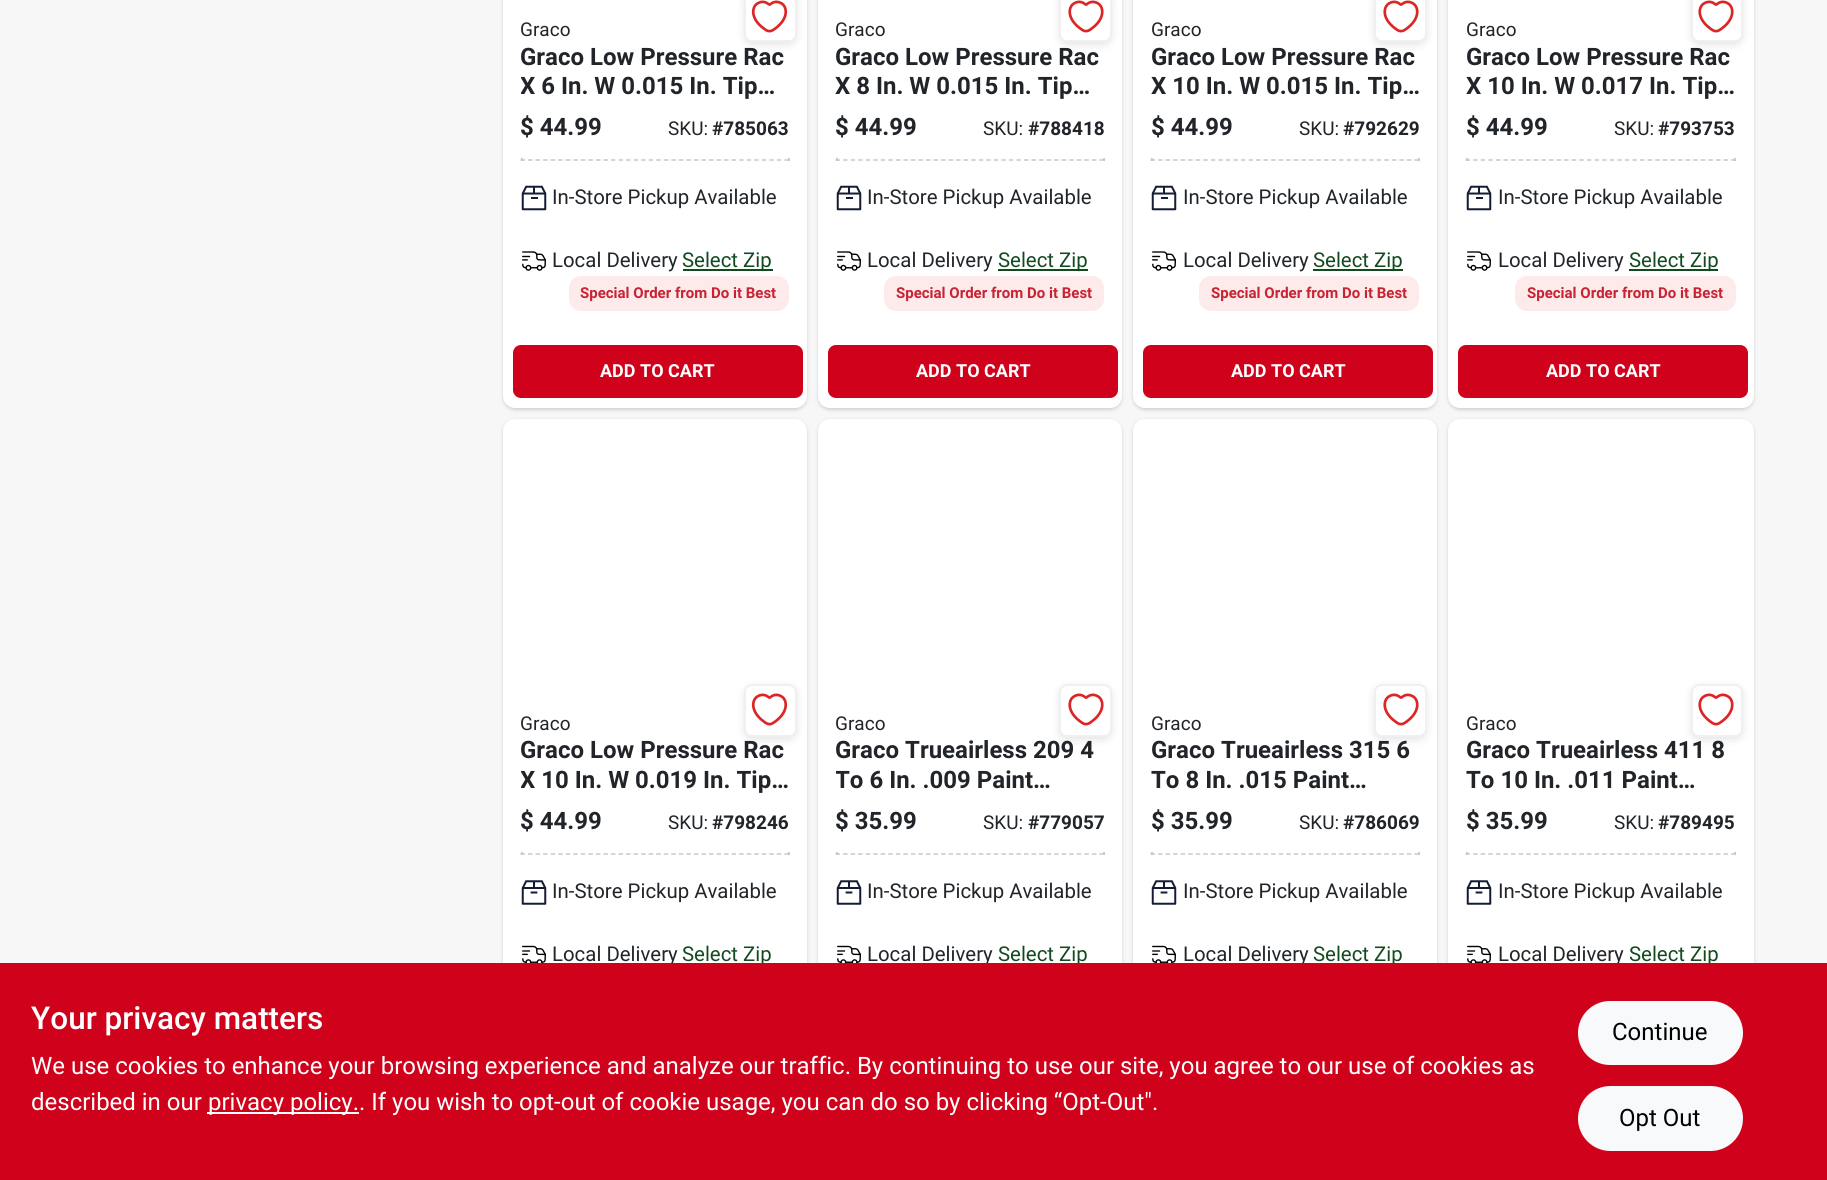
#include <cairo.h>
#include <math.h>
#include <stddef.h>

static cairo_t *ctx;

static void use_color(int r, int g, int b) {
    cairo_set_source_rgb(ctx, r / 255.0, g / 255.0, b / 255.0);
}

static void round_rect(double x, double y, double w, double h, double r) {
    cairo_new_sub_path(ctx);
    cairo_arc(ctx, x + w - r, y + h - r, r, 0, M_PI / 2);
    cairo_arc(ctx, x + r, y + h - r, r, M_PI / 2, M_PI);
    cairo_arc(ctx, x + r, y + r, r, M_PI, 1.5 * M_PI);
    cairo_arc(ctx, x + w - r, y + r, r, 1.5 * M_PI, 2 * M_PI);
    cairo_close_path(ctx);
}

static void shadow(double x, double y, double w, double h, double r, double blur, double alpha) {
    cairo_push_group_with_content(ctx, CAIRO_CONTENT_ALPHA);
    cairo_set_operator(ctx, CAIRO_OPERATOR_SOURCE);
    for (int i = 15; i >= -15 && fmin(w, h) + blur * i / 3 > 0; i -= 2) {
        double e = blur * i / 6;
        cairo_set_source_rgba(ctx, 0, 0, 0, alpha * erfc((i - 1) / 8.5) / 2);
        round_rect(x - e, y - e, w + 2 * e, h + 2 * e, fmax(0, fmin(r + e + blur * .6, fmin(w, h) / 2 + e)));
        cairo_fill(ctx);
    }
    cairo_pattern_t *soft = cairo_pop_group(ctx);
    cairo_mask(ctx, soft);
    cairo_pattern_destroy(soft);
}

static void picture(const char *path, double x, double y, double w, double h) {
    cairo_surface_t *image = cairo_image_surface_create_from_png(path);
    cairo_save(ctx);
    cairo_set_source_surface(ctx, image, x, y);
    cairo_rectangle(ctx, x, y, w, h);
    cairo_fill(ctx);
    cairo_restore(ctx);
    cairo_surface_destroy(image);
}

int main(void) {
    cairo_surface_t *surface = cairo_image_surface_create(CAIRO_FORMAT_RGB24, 1827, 1180);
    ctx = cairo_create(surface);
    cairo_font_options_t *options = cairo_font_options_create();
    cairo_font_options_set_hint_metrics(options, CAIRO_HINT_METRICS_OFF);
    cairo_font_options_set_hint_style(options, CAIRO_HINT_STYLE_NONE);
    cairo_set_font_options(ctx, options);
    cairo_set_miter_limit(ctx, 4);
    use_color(247, 247, 247);
    cairo_paint(ctx);
    use_color(0, 0, 0);
    shadow(503, -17, 304, 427, 12, 1.5, 0.06);
    shadow(503, -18, 304, 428, 12, 2, 0.1);
    use_color(255, 255, 255);
    round_rect(503, -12, 304, 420, 12);
    cairo_fill(ctx);
    use_color(0, 0, 0);
    shadow(744, -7, 53, 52, 8, 4, 0.1);
    use_color(255, 255, 255);
    round_rect(745, -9, 51, 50, 7);
    cairo_fill_preserve(ctx);
    use_color(240, 240, 240);
    cairo_stroke(ctx);
    picture("img1.png", 751, 0, 37, 33);
    cairo_save(ctx);
    cairo_rectangle(ctx, 521, 18, 268, 84);
    cairo_clip(ctx);
    cairo_select_font_face(ctx, "Roboto", CAIRO_FONT_SLANT_NORMAL, CAIRO_FONT_WEIGHT_NORMAL);
    cairo_set_font_size(ctx, 19);
    use_color(33, 37, 41);
    cairo_move_to(ctx, 520, 36);
    cairo_show_text(ctx, "Graco");
    cairo_restore(ctx);
    cairo_save(ctx);
    cairo_rectangle(ctx, 521, 42, 268, 60);
    cairo_clip(ctx);
    cairo_select_font_face(ctx, "Roboto", CAIRO_FONT_SLANT_NORMAL, CAIRO_FONT_WEIGHT_BOLD);
    cairo_set_font_size(ctx, 24);
    use_color(33, 37, 41);
    cairo_move_to(ctx, 520, 65);
    cairo_show_text(ctx, "Graco Low Pressure Rac");
    cairo_move_to(ctx, 520, 94);
    cairo_show_text(ctx, "X 6 In. W 0.015 In. Tip…");
    cairo_restore(ctx);
    cairo_select_font_face(ctx, "Roboto", CAIRO_FONT_SLANT_NORMAL, CAIRO_FONT_WEIGHT_BOLD);
    cairo_set_font_size(ctx, 24);
    use_color(33, 37, 41);
    cairo_move_to(ctx, 520, 135);
    cairo_show_text(ctx, "$ 44.99");
    cairo_select_font_face(ctx, "Roboto", CAIRO_FONT_SLANT_NORMAL, CAIRO_FONT_WEIGHT_NORMAL);
    cairo_set_font_size(ctx, 19);
    cairo_move_to(ctx, 668, 135);
    cairo_show_text(ctx, "SKU:");
    cairo_select_font_face(ctx, "Roboto", CAIRO_FONT_SLANT_NORMAL, CAIRO_FONT_WEIGHT_BOLD);
    cairo_move_to(ctx, 712, 135);
    cairo_show_text(ctx, "#785063");
    use_color(200, 201, 202);
    cairo_rectangle(ctx, 788, 158, 2, 3);
    cairo_fill(ctx);
    cairo_new_path(ctx);
    cairo_move_to(ctx, 520.5, 160);
    cairo_line_to(ctx, 789, 160);
    cairo_set_line_width(ctx, 1.5);
    cairo_set_dash(ctx, (double[]){4.5, 3.04}, 2, 0);
    cairo_stroke(ctx);
    cairo_rectangle(ctx, 521, 158, 2, 3);
    cairo_fill(ctx);
    picture("img2.png", 521, 185, 26, 26);
    cairo_select_font_face(ctx, "Roboto", CAIRO_FONT_SLANT_NORMAL, CAIRO_FONT_WEIGHT_NORMAL);
    cairo_set_font_size(ctx, 20.4);
    use_color(33, 37, 41);
    cairo_move_to(ctx, 552, 204);
    cairo_show_text(ctx, "In-Store Pickup Available");
    picture("img3.png", 522, 251, 24, 20);
    cairo_move_to(ctx, 552, 267);
    cairo_show_text(ctx, "Local Delivery");
    use_color(18, 74, 31);
    cairo_rectangle(ctx, 683, 269, 90, 2);
    cairo_fill(ctx);
    cairo_move_to(ctx, 682, 267);
    cairo_show_text(ctx, "Select Zip");
    use_color(253, 234, 234);
    round_rect(569, 276, 220, 35, 12);
    cairo_fill(ctx);
    cairo_select_font_face(ctx, "Roboto", CAIRO_FONT_SLANT_NORMAL, CAIRO_FONT_WEIGHT_BOLD);
    cairo_set_font_size(ctx, 15);
    use_color(200, 35, 51);
    cairo_move_to(ctx, 580, 298);
    cairo_show_text(ctx, "Special Order from Do it Best");
    use_color(208, 2, 27);
    round_rect(514, 346, 288, 51, 7);
    cairo_fill_preserve(ctx);
    cairo_set_line_width(ctx, 2);
    cairo_set_dash(ctx, NULL, 0, 0);
    cairo_stroke(ctx);
    cairo_set_font_size(ctx, 18);
    use_color(255, 255, 255);
    cairo_move_to(ctx, 600, 377);
    cairo_show_text(ctx, "ADD TO CART");
    use_color(0, 0, 0);
    shadow(818, -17, 304, 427, 12, 1.5, 0.06);
    shadow(818, -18, 304, 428, 12, 2, 0.1);
    use_color(255, 255, 255);
    round_rect(818, -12, 304, 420, 12);
    cairo_fill(ctx);
    use_color(0, 0, 0);
    shadow(1059, -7, 53, 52, 8, 4, 0.1);
    use_color(255, 255, 255);
    round_rect(1060, -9, 51, 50, 7);
    cairo_fill_preserve(ctx);
    use_color(240, 240, 240);
    cairo_stroke(ctx);
    picture("img4.png", 1068, 0, 36, 33);
    cairo_select_font_face(ctx, "Roboto", CAIRO_FONT_SLANT_NORMAL, CAIRO_FONT_WEIGHT_NORMAL);
    cairo_set_font_size(ctx, 19);
    use_color(33, 37, 41);
    cairo_move_to(ctx, 835, 36);
    cairo_show_text(ctx, "Graco");
    cairo_select_font_face(ctx, "Roboto", CAIRO_FONT_SLANT_NORMAL, CAIRO_FONT_WEIGHT_BOLD);
    cairo_set_font_size(ctx, 24);
    cairo_move_to(ctx, 835, 65);
    cairo_show_text(ctx, "Graco Low Pressure Rac");
    cairo_move_to(ctx, 835, 94);
    cairo_show_text(ctx, "X 8 In. W 0.015 In. Tip…");
    cairo_move_to(ctx, 835, 135);
    cairo_show_text(ctx, "$ 44.99");
    cairo_select_font_face(ctx, "Roboto", CAIRO_FONT_SLANT_NORMAL, CAIRO_FONT_WEIGHT_NORMAL);
    cairo_set_font_size(ctx, 19);
    cairo_move_to(ctx, 983, 135);
    cairo_show_text(ctx, "SKU:");
    cairo_select_font_face(ctx, "Roboto", CAIRO_FONT_SLANT_NORMAL, CAIRO_FONT_WEIGHT_BOLD);
    cairo_move_to(ctx, 1028, 135);
    cairo_show_text(ctx, "#788418");
    use_color(200, 201, 202);
    cairo_rectangle(ctx, 1103, 158, 2, 3);
    cairo_fill(ctx);
    cairo_new_path(ctx);
    cairo_move_to(ctx, 835.5, 160);
    cairo_line_to(ctx, 1104, 160);
    cairo_set_line_width(ctx, 1.5);
    cairo_set_dash(ctx, (double[]){4.5, 3.04}, 2, 0);
    cairo_stroke(ctx);
    cairo_rectangle(ctx, 836, 158, 2, 3);
    cairo_fill(ctx);
    picture("img2.png", 836, 185, 26, 26);
    cairo_select_font_face(ctx, "Roboto", CAIRO_FONT_SLANT_NORMAL, CAIRO_FONT_WEIGHT_NORMAL);
    cairo_set_font_size(ctx, 20.4);
    use_color(33, 37, 41);
    cairo_move_to(ctx, 867, 204);
    cairo_show_text(ctx, "In-Store Pickup Available");
    picture("img3.png", 837, 251, 24, 20);
    cairo_move_to(ctx, 867, 267);
    cairo_show_text(ctx, "Local Delivery");
    use_color(18, 74, 31);
    cairo_rectangle(ctx, 998, 269, 90, 2);
    cairo_fill(ctx);
    cairo_move_to(ctx, 998, 267);
    cairo_show_text(ctx, "Select Zip");
    use_color(253, 234, 234);
    round_rect(884, 276, 220, 35, 12);
    cairo_fill(ctx);
    cairo_select_font_face(ctx, "Roboto", CAIRO_FONT_SLANT_NORMAL, CAIRO_FONT_WEIGHT_BOLD);
    cairo_set_font_size(ctx, 15);
    use_color(200, 35, 51);
    cairo_move_to(ctx, 896, 298);
    cairo_show_text(ctx, "Special Order from Do it Best");
    use_color(208, 2, 27);
    round_rect(829, 346, 288, 51, 7);
    cairo_fill_preserve(ctx);
    cairo_set_line_width(ctx, 2);
    cairo_set_dash(ctx, NULL, 0, 0);
    cairo_stroke(ctx);
    cairo_set_font_size(ctx, 18);
    use_color(255, 255, 255);
    cairo_move_to(ctx, 916, 377);
    cairo_show_text(ctx, "ADD TO CART");
    use_color(0, 0, 0);
    shadow(1133, -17, 304, 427, 12, 1.5, 0.06);
    shadow(1133, -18, 304, 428, 12, 2, 0.1);
    use_color(255, 255, 255);
    round_rect(1133, -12, 304, 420, 12);
    cairo_fill(ctx);
    use_color(0, 0, 0);
    shadow(1374, -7, 53, 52, 8, 4, 0.1);
    use_color(255, 255, 255);
    round_rect(1375, -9, 51, 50, 7);
    cairo_fill_preserve(ctx);
    use_color(240, 240, 240);
    cairo_stroke(ctx);
    picture("img4.png", 1383, 0, 36, 33);
    cairo_select_font_face(ctx, "Roboto", CAIRO_FONT_SLANT_NORMAL, CAIRO_FONT_WEIGHT_NORMAL);
    cairo_set_font_size(ctx, 19);
    use_color(33, 37, 41);
    cairo_move_to(ctx, 1151, 36);
    cairo_show_text(ctx, "Graco");
    cairo_select_font_face(ctx, "Roboto", CAIRO_FONT_SLANT_NORMAL, CAIRO_FONT_WEIGHT_BOLD);
    cairo_set_font_size(ctx, 24);
    cairo_move_to(ctx, 1151, 65);
    cairo_show_text(ctx, "Graco Low Pressure Rac");
    cairo_move_to(ctx, 1151, 94);
    cairo_show_text(ctx, "X 10 In. W 0.015 In. Tip…");
    cairo_move_to(ctx, 1151, 135);
    cairo_show_text(ctx, "$ 44.99");
    cairo_select_font_face(ctx, "Roboto", CAIRO_FONT_SLANT_NORMAL, CAIRO_FONT_WEIGHT_NORMAL);
    cairo_set_font_size(ctx, 19);
    cairo_move_to(ctx, 1299, 135);
    cairo_show_text(ctx, "SKU:");
    cairo_select_font_face(ctx, "Roboto", CAIRO_FONT_SLANT_NORMAL, CAIRO_FONT_WEIGHT_BOLD);
    cairo_move_to(ctx, 1343, 135);
    cairo_show_text(ctx, "#792629");
    use_color(200, 201, 202);
    cairo_rectangle(ctx, 1418, 158, 2, 3);
    cairo_fill(ctx);
    cairo_new_path(ctx);
    cairo_move_to(ctx, 1150.5, 160);
    cairo_line_to(ctx, 1419, 160);
    cairo_set_line_width(ctx, 1.5);
    cairo_set_dash(ctx, (double[]){4.5, 3.04}, 2, 0);
    cairo_stroke(ctx);
    cairo_rectangle(ctx, 1151, 158, 2, 3);
    cairo_fill(ctx);
    picture("img2.png", 1151, 185, 26, 26);
    cairo_select_font_face(ctx, "Roboto", CAIRO_FONT_SLANT_NORMAL, CAIRO_FONT_WEIGHT_NORMAL);
    cairo_set_font_size(ctx, 20.4);
    use_color(33, 37, 41);
    cairo_move_to(ctx, 1183, 204);
    cairo_show_text(ctx, "In-Store Pickup Available");
    picture("img3.png", 1152, 251, 24, 20);
    cairo_move_to(ctx, 1183, 267);
    cairo_show_text(ctx, "Local Delivery");
    use_color(18, 74, 31);
    cairo_rectangle(ctx, 1313, 269, 90, 2);
    cairo_fill(ctx);
    cairo_move_to(ctx, 1313, 267);
    cairo_show_text(ctx, "Select Zip");
    use_color(253, 234, 234);
    round_rect(1199, 276, 220, 35, 12);
    cairo_fill(ctx);
    cairo_select_font_face(ctx, "Roboto", CAIRO_FONT_SLANT_NORMAL, CAIRO_FONT_WEIGHT_BOLD);
    cairo_set_font_size(ctx, 15);
    use_color(200, 35, 51);
    cairo_move_to(ctx, 1211, 298);
    cairo_show_text(ctx, "Special Order from Do it Best");
    use_color(208, 2, 27);
    round_rect(1144, 346, 288, 51, 7);
    cairo_fill_preserve(ctx);
    cairo_set_line_width(ctx, 2);
    cairo_set_dash(ctx, NULL, 0, 0);
    cairo_stroke(ctx);
    cairo_set_font_size(ctx, 18);
    use_color(255, 255, 255);
    cairo_move_to(ctx, 1231, 377);
    cairo_show_text(ctx, "ADD TO CART");
    use_color(0, 0, 0);
    shadow(1448, -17, 306, 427, 12, 1.5, 0.06);
    shadow(1448, -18, 306, 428, 12, 2, 0.1);
    use_color(255, 255, 255);
    round_rect(1448, -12, 306, 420, 12);
    cairo_fill(ctx);
    use_color(0, 0, 0);
    shadow(1691, -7, 52, 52, 8, 4, 0.1);
    use_color(255, 255, 255);
    round_rect(1692, -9, 50, 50, 7);
    cairo_fill_preserve(ctx);
    use_color(240, 240, 240);
    cairo_stroke(ctx);
    picture("img4.png", 1698, 0, 36, 33);
    cairo_select_font_face(ctx, "Roboto", CAIRO_FONT_SLANT_NORMAL, CAIRO_FONT_WEIGHT_NORMAL);
    cairo_set_font_size(ctx, 19);
    use_color(33, 37, 41);
    cairo_move_to(ctx, 1466, 36);
    cairo_show_text(ctx, "Graco");
    cairo_select_font_face(ctx, "Roboto", CAIRO_FONT_SLANT_NORMAL, CAIRO_FONT_WEIGHT_BOLD);
    cairo_set_font_size(ctx, 24);
    cairo_move_to(ctx, 1466, 65);
    cairo_show_text(ctx, "Graco Low Pressure Rac");
    cairo_move_to(ctx, 1466, 94);
    cairo_show_text(ctx, "X 10 In. W 0.017 In. Tip…");
    cairo_move_to(ctx, 1466, 135);
    cairo_show_text(ctx, "$ 44.99");
    cairo_select_font_face(ctx, "Roboto", CAIRO_FONT_SLANT_NORMAL, CAIRO_FONT_WEIGHT_NORMAL);
    cairo_set_font_size(ctx, 19);
    cairo_move_to(ctx, 1614, 135);
    cairo_show_text(ctx, "SKU:");
    cairo_select_font_face(ctx, "Roboto", CAIRO_FONT_SLANT_NORMAL, CAIRO_FONT_WEIGHT_BOLD);
    cairo_move_to(ctx, 1658, 135);
    cairo_show_text(ctx, "#793753");
    use_color(200, 201, 202);
    cairo_rectangle(ctx, 1734, 158, 2, 3);
    cairo_fill(ctx);
    cairo_new_path(ctx);
    cairo_move_to(ctx, 1465.5, 160);
    cairo_line_to(ctx, 1735.5, 160);
    cairo_set_line_width(ctx, 1.5);
    cairo_set_dash(ctx, (double[]){4.5, 3.09}, 2, 0);
    cairo_stroke(ctx);
    cairo_rectangle(ctx, 1466, 158, 2, 3);
    cairo_fill(ctx);
    picture("img2.png", 1466, 185, 26, 26);
    cairo_select_font_face(ctx, "Roboto", CAIRO_FONT_SLANT_NORMAL, CAIRO_FONT_WEIGHT_NORMAL);
    cairo_set_font_size(ctx, 20.4);
    use_color(33, 37, 41);
    cairo_move_to(ctx, 1498, 204);
    cairo_show_text(ctx, "In-Store Pickup Available");
    picture("img3.png", 1467, 251, 24, 20);
    cairo_move_to(ctx, 1498, 267);
    cairo_show_text(ctx, "Local Delivery");
    use_color(18, 74, 31);
    cairo_rectangle(ctx, 1629, 269, 89, 2);
    cairo_fill(ctx);
    cairo_move_to(ctx, 1629, 267);
    cairo_show_text(ctx, "Select Zip");
    use_color(253, 234, 234);
    round_rect(1515, 276, 221, 35, 12);
    cairo_fill(ctx);
    cairo_select_font_face(ctx, "Roboto", CAIRO_FONT_SLANT_NORMAL, CAIRO_FONT_WEIGHT_BOLD);
    cairo_set_font_size(ctx, 15);
    use_color(200, 35, 51);
    cairo_move_to(ctx, 1527, 298);
    cairo_show_text(ctx, "Special Order from Do it Best");
    use_color(208, 2, 27);
    round_rect(1459, 346, 288, 51, 7);
    cairo_fill_preserve(ctx);
    cairo_set_line_width(ctx, 2);
    cairo_set_dash(ctx, NULL, 0, 0);
    cairo_stroke(ctx);
    cairo_set_font_size(ctx, 18);
    use_color(255, 255, 255);
    cairo_move_to(ctx, 1546, 377);
    cairo_show_text(ctx, "ADD TO CART");
    use_color(0, 0, 0);
    shadow(503, 420, 304, 684, 12, 1.5, 0.06);
    shadow(503, 420, 304, 684, 12, 2, 0.1);
    use_color(255, 255, 255);
    round_rect(503, 419, 304, 684, 12);
    cairo_fill(ctx);
    use_color(0, 0, 0);
    shadow(744, 687, 53, 53, 8, 4, 0.1);
    use_color(255, 255, 255);
    round_rect(745, 685, 51, 51, 7);
    cairo_fill_preserve(ctx);
    use_color(240, 240, 240);
    cairo_stroke(ctx);
    picture("img1.png", 751, 693, 37, 33);
    cairo_save(ctx);
    cairo_rectangle(ctx, 521, 713, 268, 84);
    cairo_clip(ctx);
    cairo_select_font_face(ctx, "Roboto", CAIRO_FONT_SLANT_NORMAL, CAIRO_FONT_WEIGHT_NORMAL);
    cairo_set_font_size(ctx, 19);
    use_color(33, 37, 41);
    cairo_move_to(ctx, 520, 730);
    cairo_show_text(ctx, "Graco");
    cairo_restore(ctx);
    cairo_save(ctx);
    cairo_rectangle(ctx, 521, 737, 268, 60);
    cairo_clip(ctx);
    cairo_set_font_size(ctx, 24);
    use_color(33, 37, 41);
    cairo_move_to(ctx, 520, 758);
    cairo_show_text(ctx, "Graco Low Pressure Rac");
    cairo_move_to(ctx, 520, 788);
    cairo_show_text(ctx, "X 10 In. W 0.019 In. Tip…");
    cairo_restore(ctx);
    cairo_set_font_size(ctx, 24);
    use_color(33, 37, 41);
    cairo_move_to(ctx, 520, 829);
    cairo_show_text(ctx, "$ 44.99");
    cairo_select_font_face(ctx, "Roboto", CAIRO_FONT_SLANT_NORMAL, CAIRO_FONT_WEIGHT_NORMAL);
    cairo_set_font_size(ctx, 19);
    cairo_move_to(ctx, 668, 829);
    cairo_show_text(ctx, "SKU:");
    cairo_select_font_face(ctx, "Roboto", CAIRO_FONT_SLANT_NORMAL, CAIRO_FONT_WEIGHT_BOLD);
    cairo_move_to(ctx, 712, 829);
    cairo_show_text(ctx, "#798246");
    use_color(200, 201, 202);
    cairo_rectangle(ctx, 788, 852, 2, 3);
    cairo_fill(ctx);
    cairo_new_path(ctx);
    cairo_move_to(ctx, 520.5, 854);
    cairo_line_to(ctx, 789, 854);
    cairo_set_line_width(ctx, 1.5);
    cairo_set_dash(ctx, (double[]){4.5, 3.04}, 2, 0);
    cairo_stroke(ctx);
    cairo_rectangle(ctx, 521, 852, 2, 3);
    cairo_fill(ctx);
    picture("img5.png", 521, 880, 26, 25);
    cairo_select_font_face(ctx, "Roboto", CAIRO_FONT_SLANT_NORMAL, CAIRO_FONT_WEIGHT_NORMAL);
    cairo_set_font_size(ctx, 20.4);
    use_color(33, 37, 41);
    cairo_move_to(ctx, 552, 898);
    cairo_show_text(ctx, "In-Store Pickup Available");
    picture("img6.png", 522, 945, 24, 18);
    cairo_move_to(ctx, 552, 961);
    cairo_show_text(ctx, "Local Delivery");
    use_color(18, 74, 31);
    cairo_move_to(ctx, 682, 961);
    cairo_show_text(ctx, "Select Zip");
    use_color(0, 0, 0);
    shadow(818, 420, 304, 684, 12, 1.5, 0.06);
    shadow(818, 420, 304, 684, 12, 2, 0.1);
    use_color(255, 255, 255);
    round_rect(818, 419, 304, 684, 12);
    cairo_fill(ctx);
    use_color(0, 0, 0);
    shadow(1059, 687, 53, 53, 8, 4, 0.1);
    use_color(255, 255, 255);
    round_rect(1060, 685, 51, 51, 7);
    cairo_fill_preserve(ctx);
    use_color(240, 240, 240);
    cairo_set_line_width(ctx, 2);
    cairo_set_dash(ctx, NULL, 0, 0);
    cairo_stroke(ctx);
    picture("img4.png", 1068, 693, 36, 33);
    cairo_set_font_size(ctx, 19);
    use_color(33, 37, 41);
    cairo_move_to(ctx, 835, 730);
    cairo_show_text(ctx, "Graco");
    cairo_select_font_face(ctx, "Roboto", CAIRO_FONT_SLANT_NORMAL, CAIRO_FONT_WEIGHT_BOLD);
    cairo_set_font_size(ctx, 24);
    cairo_move_to(ctx, 835, 758);
    cairo_show_text(ctx, "Graco Trueairless 209 4");
    cairo_save(ctx);
    cairo_rectangle(ctx, 836, 737, 268, 60);
    cairo_clip(ctx);
    cairo_move_to(ctx, 835, 788);
    cairo_show_text(ctx, "To 6 In. .009 Paint…");
    cairo_restore(ctx);
    cairo_move_to(ctx, 835, 829);
    cairo_show_text(ctx, "$ 35.99");
    cairo_select_font_face(ctx, "Roboto", CAIRO_FONT_SLANT_NORMAL, CAIRO_FONT_WEIGHT_NORMAL);
    cairo_set_font_size(ctx, 19);
    cairo_move_to(ctx, 983, 829);
    cairo_show_text(ctx, "SKU:");
    cairo_select_font_face(ctx, "Roboto", CAIRO_FONT_SLANT_NORMAL, CAIRO_FONT_WEIGHT_BOLD);
    cairo_move_to(ctx, 1028, 829);
    cairo_show_text(ctx, "#779057");
    use_color(200, 201, 202);
    cairo_rectangle(ctx, 1103, 852, 2, 3);
    cairo_fill(ctx);
    cairo_new_path(ctx);
    cairo_move_to(ctx, 835.5, 854);
    cairo_line_to(ctx, 1104, 854);
    cairo_set_line_width(ctx, 1.5);
    cairo_set_dash(ctx, (double[]){4.5, 3.04}, 2, 0);
    cairo_stroke(ctx);
    cairo_rectangle(ctx, 836, 852, 2, 3);
    cairo_fill(ctx);
    picture("img5.png", 836, 880, 26, 25);
    cairo_select_font_face(ctx, "Roboto", CAIRO_FONT_SLANT_NORMAL, CAIRO_FONT_WEIGHT_NORMAL);
    cairo_set_font_size(ctx, 20.4);
    use_color(33, 37, 41);
    cairo_move_to(ctx, 867, 898);
    cairo_show_text(ctx, "In-Store Pickup Available");
    picture("img6.png", 837, 945, 24, 18);
    cairo_move_to(ctx, 867, 961);
    cairo_show_text(ctx, "Local Delivery");
    use_color(18, 74, 31);
    cairo_move_to(ctx, 998, 961);
    cairo_show_text(ctx, "Select Zip");
    use_color(0, 0, 0);
    shadow(1133, 420, 304, 684, 12, 1.5, 0.06);
    shadow(1133, 420, 304, 684, 12, 2, 0.1);
    use_color(255, 255, 255);
    round_rect(1133, 419, 304, 684, 12);
    cairo_fill(ctx);
    use_color(0, 0, 0);
    shadow(1374, 687, 53, 53, 8, 4, 0.1);
    use_color(255, 255, 255);
    round_rect(1375, 685, 51, 51, 7);
    cairo_fill_preserve(ctx);
    use_color(240, 240, 240);
    cairo_set_line_width(ctx, 2);
    cairo_set_dash(ctx, NULL, 0, 0);
    cairo_stroke(ctx);
    picture("img4.png", 1383, 693, 36, 33);
    cairo_set_font_size(ctx, 19);
    use_color(33, 37, 41);
    cairo_move_to(ctx, 1151, 730);
    cairo_show_text(ctx, "Graco");
    cairo_select_font_face(ctx, "Roboto", CAIRO_FONT_SLANT_NORMAL, CAIRO_FONT_WEIGHT_BOLD);
    cairo_set_font_size(ctx, 24);
    cairo_move_to(ctx, 1151, 758);
    cairo_show_text(ctx, "Graco Trueairless 315 6");
    cairo_move_to(ctx, 1151, 788);
    cairo_show_text(ctx, "To 8 In. .015 Paint…");
    cairo_move_to(ctx, 1151, 829);
    cairo_show_text(ctx, "$ 35.99");
    cairo_select_font_face(ctx, "Roboto", CAIRO_FONT_SLANT_NORMAL, CAIRO_FONT_WEIGHT_NORMAL);
    cairo_set_font_size(ctx, 19);
    cairo_move_to(ctx, 1299, 829);
    cairo_show_text(ctx, "SKU:");
    cairo_select_font_face(ctx, "Roboto", CAIRO_FONT_SLANT_NORMAL, CAIRO_FONT_WEIGHT_BOLD);
    cairo_move_to(ctx, 1343, 829);
    cairo_show_text(ctx, "#786069");
    use_color(200, 201, 202);
    cairo_rectangle(ctx, 1418, 852, 2, 3);
    cairo_fill(ctx);
    cairo_new_path(ctx);
    cairo_move_to(ctx, 1150.5, 854);
    cairo_line_to(ctx, 1419, 854);
    cairo_set_line_width(ctx, 1.5);
    cairo_set_dash(ctx, (double[]){4.5, 3.04}, 2, 0);
    cairo_stroke(ctx);
    cairo_rectangle(ctx, 1151, 852, 2, 3);
    cairo_fill(ctx);
    picture("img5.png", 1151, 880, 26, 25);
    cairo_select_font_face(ctx, "Roboto", CAIRO_FONT_SLANT_NORMAL, CAIRO_FONT_WEIGHT_NORMAL);
    cairo_set_font_size(ctx, 20.4);
    use_color(33, 37, 41);
    cairo_move_to(ctx, 1183, 898);
    cairo_show_text(ctx, "In-Store Pickup Available");
    picture("img6.png", 1152, 945, 24, 18);
    cairo_move_to(ctx, 1183, 961);
    cairo_show_text(ctx, "Local Delivery");
    use_color(18, 74, 31);
    cairo_move_to(ctx, 1313, 961);
    cairo_show_text(ctx, "Select Zip");
    use_color(0, 0, 0);
    shadow(1448, 420, 306, 684, 12, 1.5, 0.06);
    shadow(1448, 420, 306, 684, 12, 2, 0.1);
    use_color(255, 255, 255);
    round_rect(1448, 419, 306, 684, 12);
    cairo_fill(ctx);
    use_color(0, 0, 0);
    shadow(1691, 687, 52, 53, 8, 4, 0.1);
    use_color(255, 255, 255);
    round_rect(1692, 685, 50, 51, 7);
    cairo_fill_preserve(ctx);
    use_color(240, 240, 240);
    cairo_set_line_width(ctx, 2);
    cairo_set_dash(ctx, NULL, 0, 0);
    cairo_stroke(ctx);
    picture("img4.png", 1698, 693, 36, 33);
    cairo_set_font_size(ctx, 19);
    use_color(33, 37, 41);
    cairo_move_to(ctx, 1466, 730);
    cairo_show_text(ctx, "Graco");
    cairo_select_font_face(ctx, "Roboto", CAIRO_FONT_SLANT_NORMAL, CAIRO_FONT_WEIGHT_BOLD);
    cairo_set_font_size(ctx, 24);
    cairo_move_to(ctx, 1466, 758);
    cairo_show_text(ctx, "Graco Trueairless 411 8");
    cairo_move_to(ctx, 1466, 788);
    cairo_show_text(ctx, "To 10 In. .011 Paint…");
    cairo_move_to(ctx, 1466, 829);
    cairo_show_text(ctx, "$ 35.99");
    cairo_select_font_face(ctx, "Roboto", CAIRO_FONT_SLANT_NORMAL, CAIRO_FONT_WEIGHT_NORMAL);
    cairo_set_font_size(ctx, 19);
    cairo_move_to(ctx, 1614, 829);
    cairo_show_text(ctx, "SKU:");
    cairo_select_font_face(ctx, "Roboto", CAIRO_FONT_SLANT_NORMAL, CAIRO_FONT_WEIGHT_BOLD);
    cairo_move_to(ctx, 1658, 829);
    cairo_show_text(ctx, "#789495");
    use_color(200, 201, 202);
    cairo_rectangle(ctx, 1734, 852, 2, 3);
    cairo_fill(ctx);
    cairo_new_path(ctx);
    cairo_move_to(ctx, 1465.5, 854);
    cairo_line_to(ctx, 1735.5, 854);
    cairo_set_line_width(ctx, 1.5);
    cairo_set_dash(ctx, (double[]){4.5, 3.09}, 2, 0);
    cairo_stroke(ctx);
    cairo_rectangle(ctx, 1466, 852, 2, 3);
    cairo_fill(ctx);
    picture("img5.png", 1466, 880, 26, 25);
    cairo_select_font_face(ctx, "Roboto", CAIRO_FONT_SLANT_NORMAL, CAIRO_FONT_WEIGHT_NORMAL);
    cairo_set_font_size(ctx, 20.4);
    use_color(33, 37, 41);
    cairo_move_to(ctx, 1498, 898);
    cairo_show_text(ctx, "In-Store Pickup Available");
    picture("img6.png", 1467, 945, 24, 18);
    cairo_move_to(ctx, 1498, 961);
    cairo_show_text(ctx, "Local Delivery");
    use_color(18, 74, 31);
    cairo_move_to(ctx, 1629, 961);
    cairo_show_text(ctx, "Select Zip");
    use_color(208, 2, 27);
    cairo_rectangle(ctx, 0, 963, 1827, 217);
    cairo_fill(ctx);
    cairo_select_font_face(ctx, "Roboto Medium", CAIRO_FONT_SLANT_NORMAL, CAIRO_FONT_WEIGHT_NORMAL);
    cairo_set_font_size(ctx, 31.5);
    use_color(255, 255, 255);
    cairo_move_to(ctx, 31, 1029);
    cairo_show_text(ctx, "Your privacy matters");
    cairo_select_font_face(ctx, "Roboto", CAIRO_FONT_SLANT_NORMAL, CAIRO_FONT_WEIGHT_NORMAL);
    cairo_set_font_size(ctx, 24);
    cairo_move_to(ctx, 31, 1074);
    cairo_show_text(ctx, "We use cookies to enhance your browsing experience and analyze our traffic. By continuing to use our site, you agree to our use of cookies as");
    cairo_move_to(ctx, 31, 1110);
    cairo_show_text(ctx, "described in our");
    cairo_rectangle(ctx, 207, 1112, 152, 2);
    cairo_fill(ctx);
    cairo_move_to(ctx, 208, 1110);
    cairo_show_text(ctx, "privacy policy.. If you wish to opt-out of cookie usage, you can do so by clicking “Opt-Out\".");
    use_color(248, 249, 250);
    round_rect(1579, 1002, 163, 62, 31);
    cairo_fill_preserve(ctx);
    cairo_set_line_width(ctx, 2);
    cairo_set_dash(ctx, NULL, 0, 0);
    cairo_stroke(ctx);
    use_color(0, 0, 0);
    cairo_move_to(ctx, 1612, 1040);
    cairo_show_text(ctx, "Continue");
    use_color(248, 249, 250);
    round_rect(1579, 1087, 163, 63, 31.5);
    cairo_fill_preserve(ctx);
    cairo_stroke(ctx);
    use_color(0, 0, 0);
    cairo_move_to(ctx, 1619, 1126);
    cairo_show_text(ctx, "Opt Out");
    cairo_surface_write_to_png(surface, "result.png");
    cairo_font_options_destroy(options);
    cairo_destroy(ctx);
    cairo_surface_destroy(surface);
    return 0;
}
